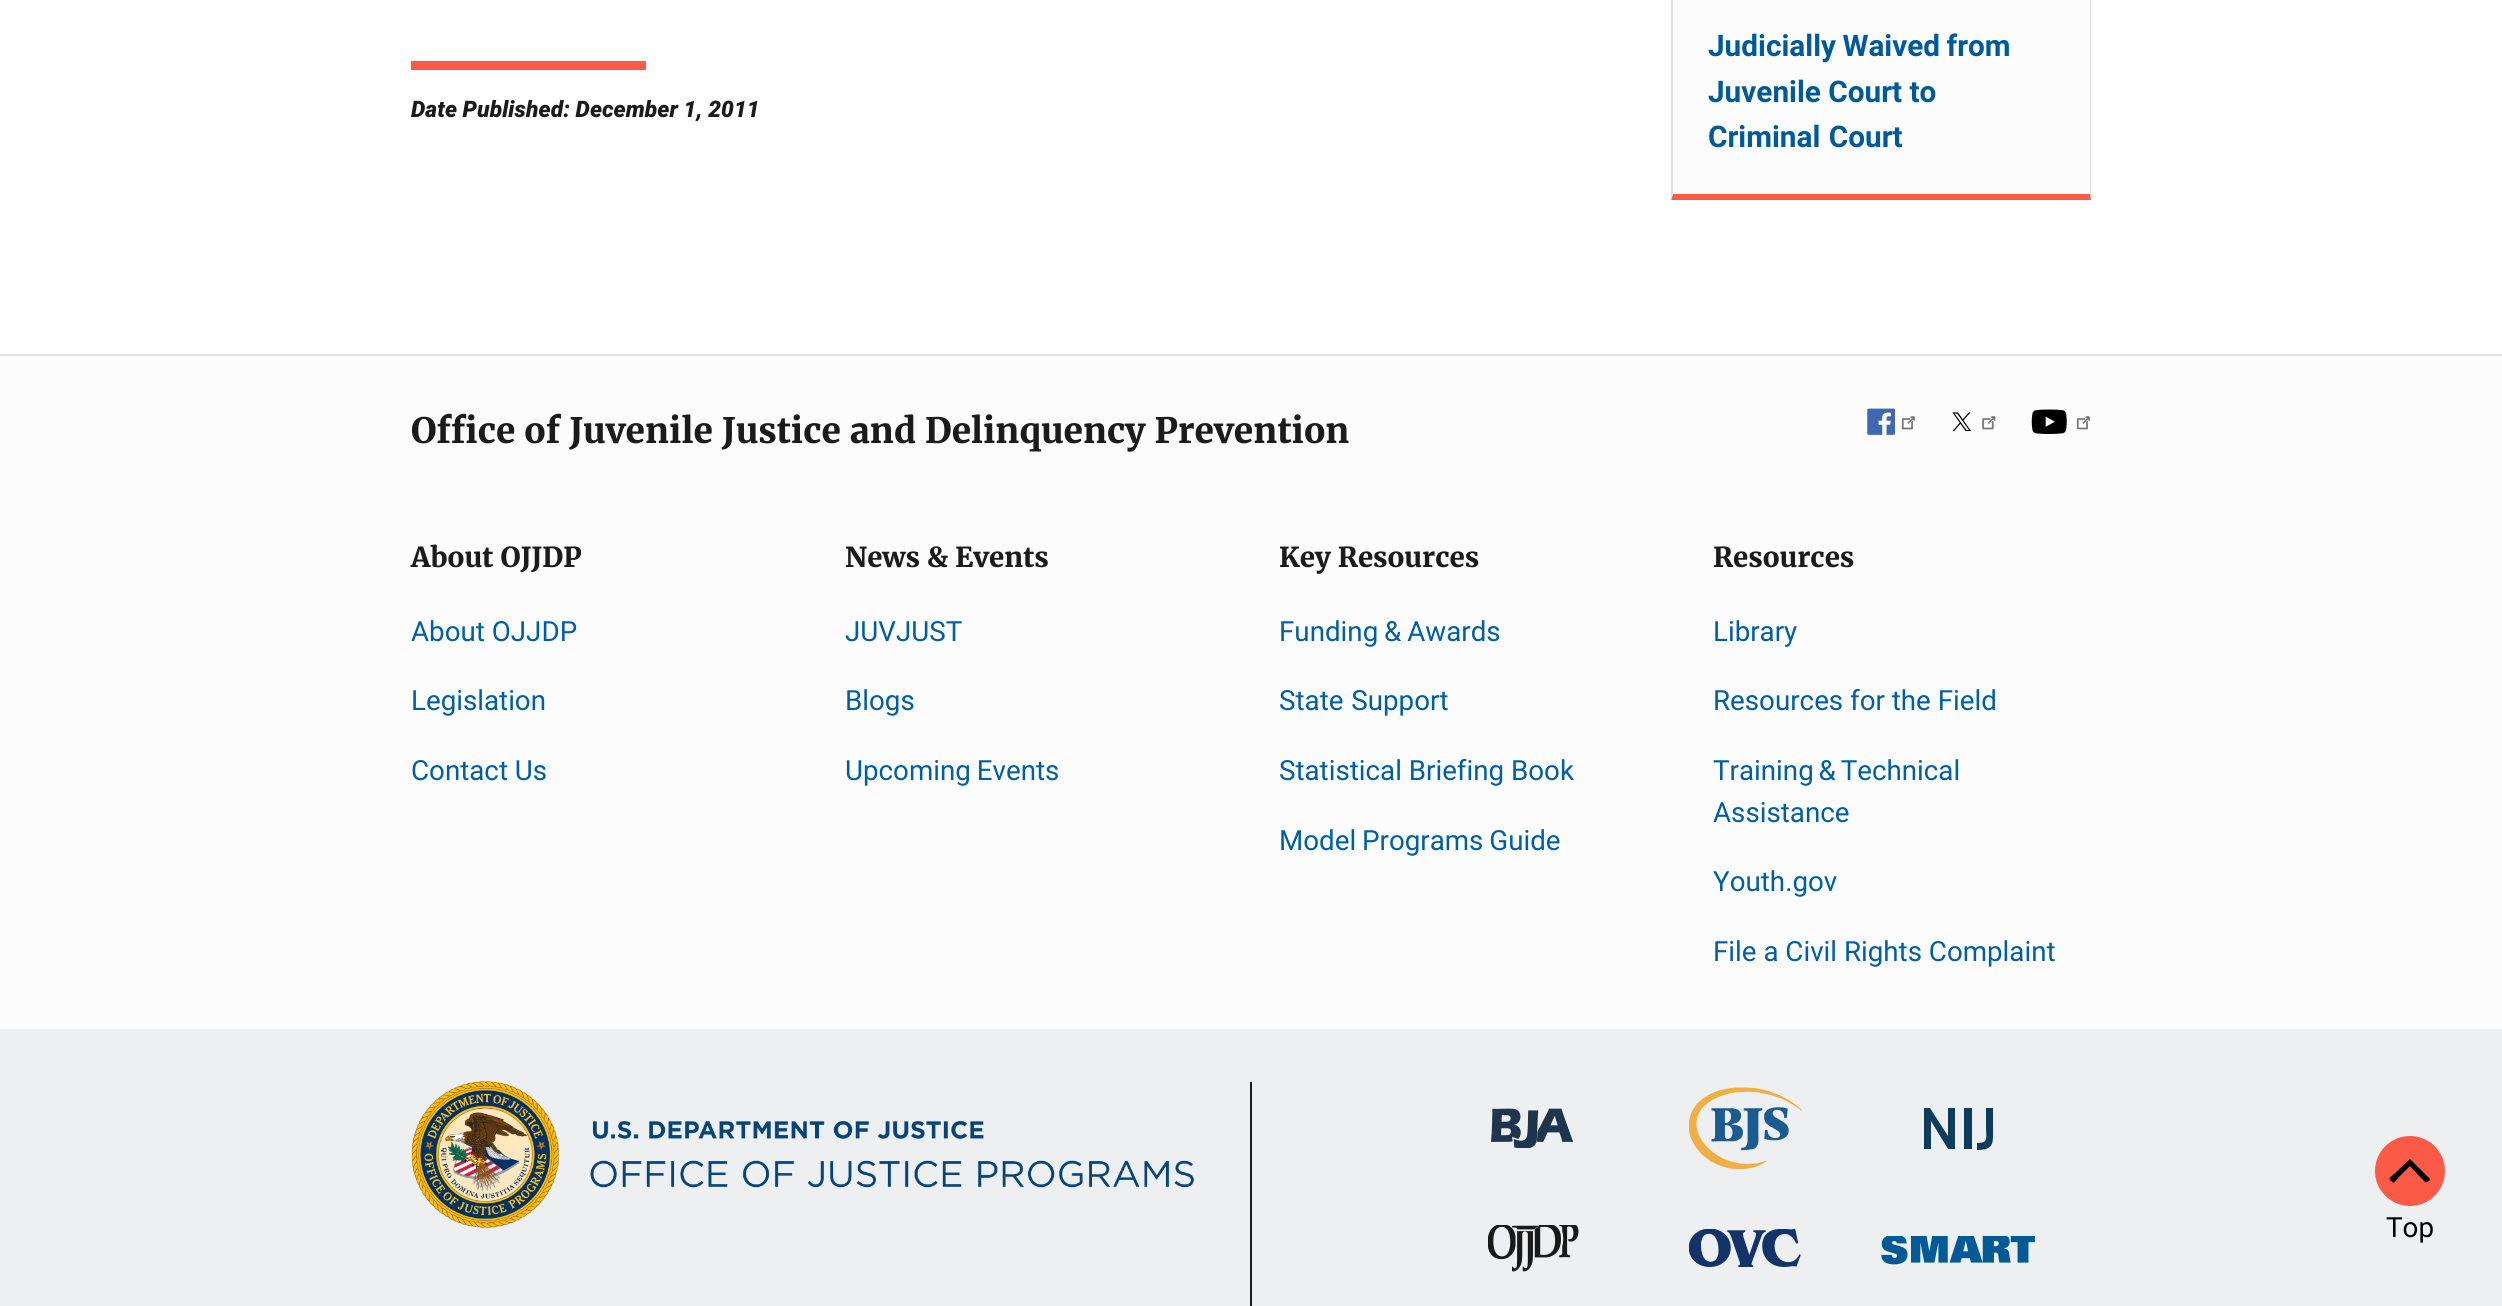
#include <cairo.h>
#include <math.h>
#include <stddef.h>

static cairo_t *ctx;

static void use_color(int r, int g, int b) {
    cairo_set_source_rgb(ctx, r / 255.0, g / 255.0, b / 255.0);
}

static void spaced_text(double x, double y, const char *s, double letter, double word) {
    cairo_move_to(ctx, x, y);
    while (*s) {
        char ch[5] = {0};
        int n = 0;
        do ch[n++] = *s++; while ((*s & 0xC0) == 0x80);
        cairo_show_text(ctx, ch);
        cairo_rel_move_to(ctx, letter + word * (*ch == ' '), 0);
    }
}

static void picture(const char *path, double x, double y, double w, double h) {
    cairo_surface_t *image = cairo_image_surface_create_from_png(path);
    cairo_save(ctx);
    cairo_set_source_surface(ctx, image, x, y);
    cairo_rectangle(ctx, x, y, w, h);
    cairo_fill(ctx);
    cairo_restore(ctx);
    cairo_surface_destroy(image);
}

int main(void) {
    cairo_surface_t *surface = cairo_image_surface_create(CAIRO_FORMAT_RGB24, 2502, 1306);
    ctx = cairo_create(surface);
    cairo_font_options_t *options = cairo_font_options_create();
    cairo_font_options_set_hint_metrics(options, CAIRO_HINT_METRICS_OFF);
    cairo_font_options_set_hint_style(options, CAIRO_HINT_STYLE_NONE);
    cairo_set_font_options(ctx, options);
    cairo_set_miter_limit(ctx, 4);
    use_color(255, 255, 255);
    cairo_paint(ctx);
    use_color(251, 90, 71);
    cairo_rectangle(ctx, 411, 61, 235, 9);
    cairo_fill(ctx);
    cairo_select_font_face(ctx, "Roboto Black", CAIRO_FONT_SLANT_ITALIC, CAIRO_FONT_WEIGHT_NORMAL);
    cairo_set_font_size(ctx, 22.75);
    use_color(27, 27, 27);
    cairo_move_to(ctx, 411, 117);
    cairo_show_text(ctx, "Date Published: December 1, 2011");
    use_color(252, 252, 252);
    cairo_rectangle(ctx, 1673, 0, 417, 194);
    cairo_fill(ctx);
    use_color(223, 225, 226);
    cairo_new_path(ctx);
    cairo_move_to(ctx, 2091, -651);
    cairo_line_to(ctx, 2091, 200);
    cairo_line_to(ctx, 2090, 194);
    cairo_line_to(ctx, 2090, -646);
    cairo_close_path(ctx);
    cairo_fill(ctx);
    use_color(251, 90, 71);
    cairo_new_path(ctx);
    cairo_move_to(ctx, 2091, 200);
    cairo_line_to(ctx, 1671, 200);
    cairo_line_to(ctx, 1673, 194);
    cairo_line_to(ctx, 2090, 194);
    cairo_close_path(ctx);
    cairo_fill(ctx);
    use_color(223, 225, 226);
    cairo_new_path(ctx);
    cairo_move_to(ctx, 1671, 200);
    cairo_line_to(ctx, 1671, -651);
    cairo_line_to(ctx, 1673, -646);
    cairo_line_to(ctx, 1673, 194);
    cairo_close_path(ctx);
    cairo_fill(ctx);
    cairo_select_font_face(ctx, "Roboto", CAIRO_FONT_SLANT_NORMAL, CAIRO_FONT_WEIGHT_BOLD);
    cairo_set_font_size(ctx, 29.75);
    use_color(0, 89, 153);
    spaced_text(1708, 56, "Judicially Waived from", 0, -1);
    cairo_move_to(ctx, 1708, 102);
    cairo_show_text(ctx, "Juvenile Court to");
    spaced_text(1708, 147, "Criminal Court", 0, 1);
    use_color(252, 252, 252);
    cairo_rectangle(ctx, 0, 356, 2502, 673);
    cairo_fill(ctx);
    use_color(223, 225, 226);
    cairo_rectangle(ctx, 0, 354, 2502, 2);
    cairo_fill(ctx);
    cairo_select_font_face(ctx, "Merriweather", CAIRO_FONT_SLANT_NORMAL, CAIRO_FONT_WEIGHT_BOLD);
    cairo_set_font_size(ctx, 35);
    use_color(27, 27, 27);
    cairo_move_to(ctx, 411, 443);
    cairo_show_text(ctx, "Office of Juvenile Justice and Delinquency Prevention");
    picture("img1.png", 1867, 408, 28, 27);
    picture("img2.png", 1901, 416, 14, 14);
    picture("img3.png", 1952, 412, 19, 20);
    picture("img4.png", 1982, 416, 14, 14);
    picture("img5.png", 2031, 409, 36, 25);
    picture("img2.png", 2076, 416, 14, 14);
    cairo_set_font_size(ctx, 27.5);
    cairo_move_to(ctx, 411, 567);
    cairo_show_text(ctx, "About OJJDP");
    cairo_select_font_face(ctx, "Roboto", CAIRO_FONT_SLANT_NORMAL, CAIRO_FONT_WEIGHT_NORMAL);
    cairo_set_font_size(ctx, 27.75);
    use_color(0, 94, 162);
    cairo_move_to(ctx, 411, 641);
    cairo_show_text(ctx, "About OJJDP");
    cairo_move_to(ctx, 411, 710);
    cairo_show_text(ctx, "Legislation");
    cairo_move_to(ctx, 411, 780);
    cairo_show_text(ctx, "Contact Us");
    cairo_select_font_face(ctx, "Merriweather", CAIRO_FONT_SLANT_NORMAL, CAIRO_FONT_WEIGHT_BOLD);
    cairo_set_font_size(ctx, 27.5);
    use_color(27, 27, 27);
    cairo_move_to(ctx, 845, 567);
    cairo_show_text(ctx, "News & Events");
    cairo_select_font_face(ctx, "Roboto", CAIRO_FONT_SLANT_NORMAL, CAIRO_FONT_WEIGHT_NORMAL);
    cairo_set_font_size(ctx, 27.75);
    use_color(0, 94, 162);
    cairo_move_to(ctx, 845, 641);
    cairo_show_text(ctx, "JUVJUST");
    cairo_move_to(ctx, 845, 710);
    cairo_show_text(ctx, "Blogs");
    spaced_text(845, 780, "Upcoming Events", 0, -1);
    cairo_select_font_face(ctx, "Merriweather", CAIRO_FONT_SLANT_NORMAL, CAIRO_FONT_WEIGHT_BOLD);
    cairo_set_font_size(ctx, 27.5);
    use_color(27, 27, 27);
    cairo_move_to(ctx, 1279, 567);
    cairo_show_text(ctx, "Key Resources");
    cairo_select_font_face(ctx, "Roboto", CAIRO_FONT_SLANT_NORMAL, CAIRO_FONT_WEIGHT_NORMAL);
    cairo_set_font_size(ctx, 27.75);
    use_color(0, 94, 162);
    spaced_text(1279, 641, "Funding & Awards", 0, -1);
    spaced_text(1279, 710, "State Support", 0, 1);
    cairo_move_to(ctx, 1279, 780);
    cairo_show_text(ctx, "Statistical Briefing Book");
    spaced_text(1279, 850, "Model Programs Guide", 0, -1);
    cairo_select_font_face(ctx, "Merriweather", CAIRO_FONT_SLANT_NORMAL, CAIRO_FONT_WEIGHT_BOLD);
    cairo_set_font_size(ctx, 27.5);
    use_color(27, 27, 27);
    cairo_move_to(ctx, 1713, 567);
    cairo_show_text(ctx, "Resources");
    cairo_select_font_face(ctx, "Roboto", CAIRO_FONT_SLANT_NORMAL, CAIRO_FONT_WEIGHT_NORMAL);
    cairo_set_font_size(ctx, 27.75);
    use_color(0, 94, 162);
    cairo_move_to(ctx, 1713, 641);
    cairo_show_text(ctx, "Library");
    cairo_move_to(ctx, 1713, 710);
    cairo_show_text(ctx, "Resources for the Field");
    spaced_text(1713, 780, "Training & Technical", 0, -2);
    cairo_move_to(ctx, 1713, 822);
    cairo_show_text(ctx, "Assistance");
    cairo_move_to(ctx, 1713, 891);
    cairo_show_text(ctx, "Youth.gov");
    cairo_move_to(ctx, 1713, 961);
    cairo_show_text(ctx, "File a Civil Rights Complaint");
    use_color(237, 239, 240);
    cairo_rectangle(ctx, 0, 1029, 2502, 277);
    cairo_fill(ctx);
    use_color(27, 27, 27);
    cairo_rectangle(ctx, 1250, 1082, 2, 224);
    cairo_fill(ctx);
    picture("img6.png", 411, 1081, 783, 147);
    picture("img7.png", 1491, 1108, 82, 40);
    picture("img8.png", 1689, 1087, 113, 82);
    use_color(14, 60, 93);
    cairo_new_path(ctx);
    cairo_move_to(ctx, 1924, 1108);
    cairo_line_to(ctx, 1930, 1108);
    cairo_line_to(ctx, 1948, 1136);
    cairo_line_to(ctx, 1948, 1108);
    cairo_line_to(ctx, 1955, 1108);
    cairo_line_to(ctx, 1955, 1149);
    cairo_line_to(ctx, 1948, 1149);
    cairo_line_to(ctx, 1931, 1121);
    cairo_line_to(ctx, 1931, 1149);
    cairo_line_to(ctx, 1924, 1149);
    cairo_close_path(ctx);
    cairo_fill(ctx);
    cairo_rectangle(ctx, 1964, 1108, 8, 41);
    cairo_fill(ctx);
    cairo_new_path(ctx);
    cairo_move_to(ctx, 1977, 1143);
    cairo_curve_to(ctx, 1989, 1143, 1986, 1138, 1986, 1127);
    cairo_line_to(ctx, 1986, 1108);
    cairo_line_to(ctx, 1993, 1108);
    cairo_line_to(ctx, 1993, 1127);
    cairo_curve_to(ctx, 1993, 1142, 1995, 1150, 1977, 1150);
    cairo_close_path(ctx);
    cairo_fill(ctx);
    picture("img9.png", 1488, 1225, 91, 47);
    picture("img10.png", 1689, 1229, 112, 38);
    picture("img11.png", 1881, 1236, 154, 29);
    use_color(251, 90, 71);
    cairo_arc(ctx, 2410, 1171, 35, 0, 2 * M_PI);
    cairo_fill(ctx);
    use_color(0, 0, 0);
    cairo_new_path(ctx);
    cairo_move_to(ctx, 2390, 1180);
    cairo_curve_to(ctx, 2388, 1178, 2393, 1175, 2393, 1175);
    cairo_line_to(ctx, 2410, 1159);
    cairo_line_to(ctx, 2430, 1179);
    cairo_line_to(ctx, 2430, 1180);
    cairo_curve_to(ctx, 2425, 1185, 2425, 1181, 2420, 1177);
    cairo_line_to(ctx, 2410, 1166);
    cairo_line_to(ctx, 2399, 1177);
    cairo_curve_to(ctx, 2394, 1182, 2395, 1185, 2390, 1180);
    cairo_close_path(ctx);
    cairo_fill(ctx);
    cairo_move_to(ctx, 2386, 1237);
    cairo_show_text(ctx, "Top");
    cairo_surface_write_to_png(surface, "result.png");
    cairo_font_options_destroy(options);
    cairo_destroy(ctx);
    cairo_surface_destroy(surface);
    return 0;
}
